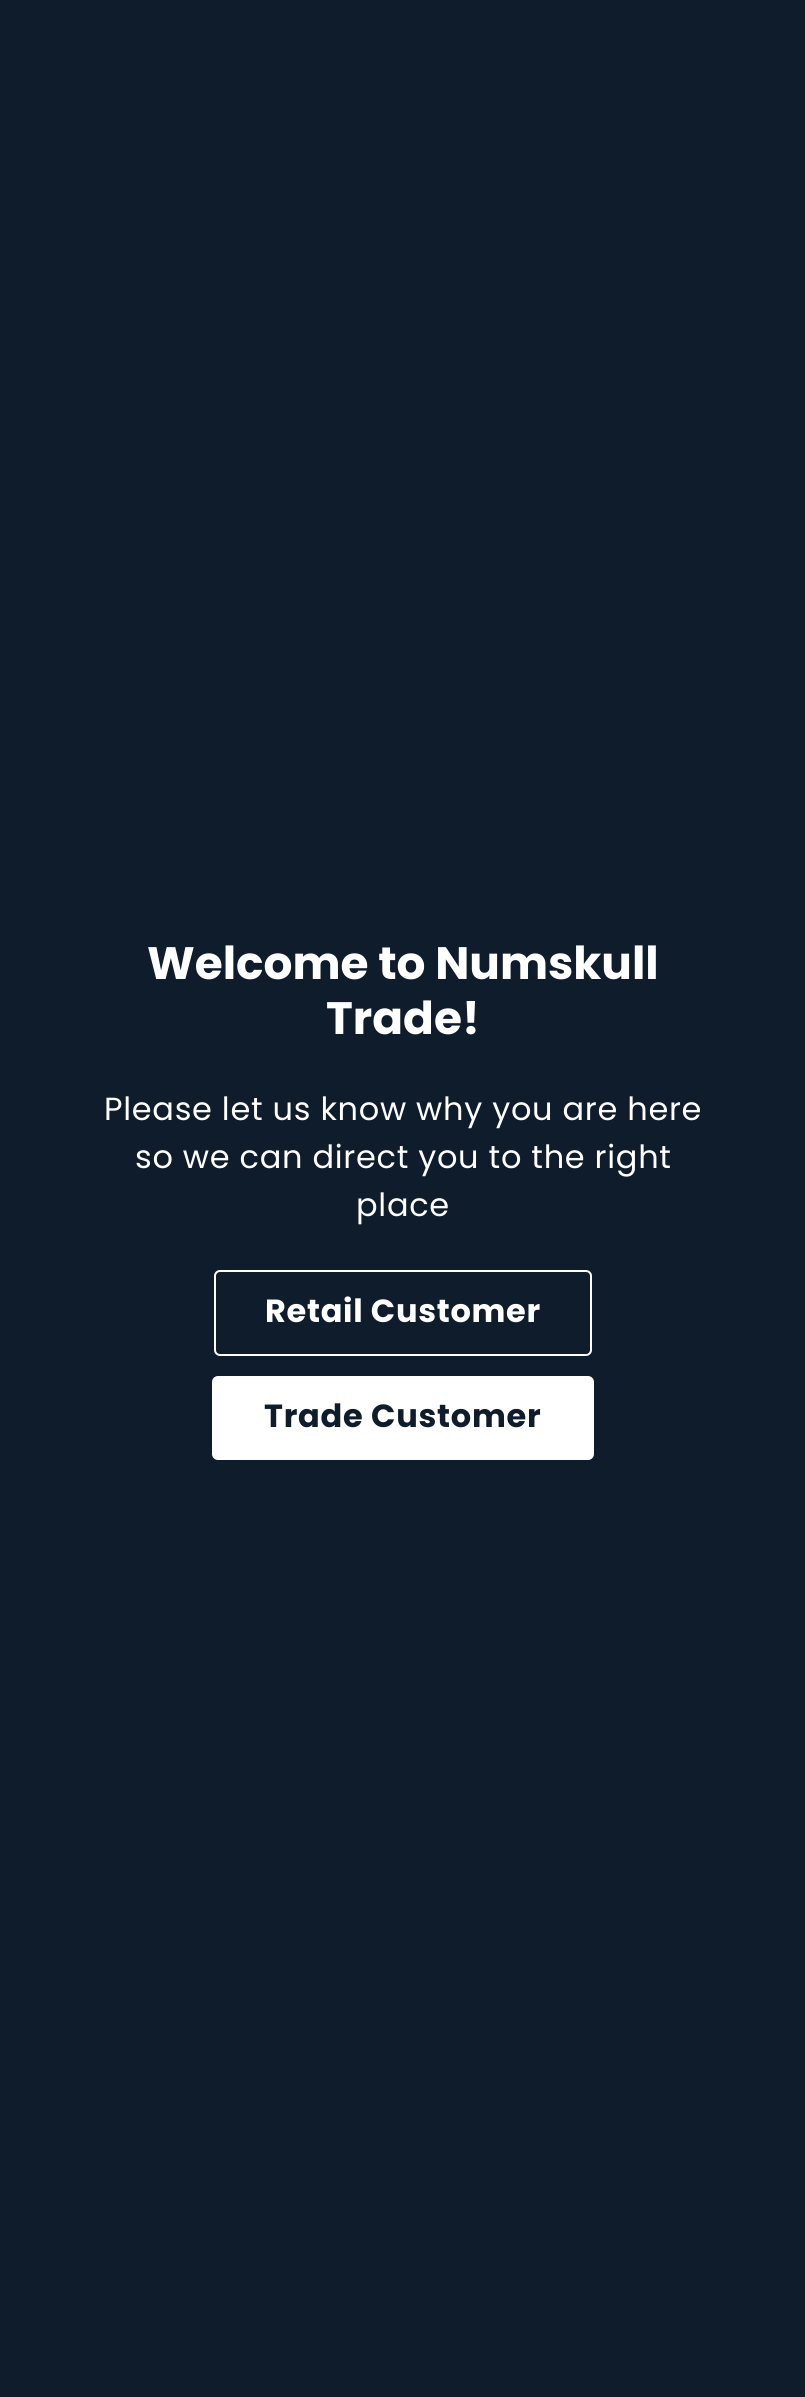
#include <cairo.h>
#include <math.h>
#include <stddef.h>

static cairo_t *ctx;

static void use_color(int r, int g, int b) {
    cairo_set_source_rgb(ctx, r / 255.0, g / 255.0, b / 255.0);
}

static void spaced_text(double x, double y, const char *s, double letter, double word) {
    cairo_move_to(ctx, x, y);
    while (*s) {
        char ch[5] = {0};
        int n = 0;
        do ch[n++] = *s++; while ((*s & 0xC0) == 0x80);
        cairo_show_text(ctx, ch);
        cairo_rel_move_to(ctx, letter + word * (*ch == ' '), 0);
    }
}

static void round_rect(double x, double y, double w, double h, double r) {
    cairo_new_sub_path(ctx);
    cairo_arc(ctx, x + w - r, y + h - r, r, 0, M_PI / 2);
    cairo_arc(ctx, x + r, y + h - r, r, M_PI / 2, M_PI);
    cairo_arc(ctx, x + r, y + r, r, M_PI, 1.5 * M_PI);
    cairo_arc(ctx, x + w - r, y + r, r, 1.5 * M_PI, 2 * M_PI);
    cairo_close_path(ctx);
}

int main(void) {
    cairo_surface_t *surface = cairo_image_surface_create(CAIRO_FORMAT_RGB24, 805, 2397);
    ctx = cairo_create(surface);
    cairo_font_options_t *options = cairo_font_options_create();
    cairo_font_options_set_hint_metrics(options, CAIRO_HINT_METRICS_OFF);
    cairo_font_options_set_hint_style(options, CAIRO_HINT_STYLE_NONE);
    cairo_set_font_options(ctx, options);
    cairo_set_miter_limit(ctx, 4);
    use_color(14, 28, 44);
    cairo_paint(ctx);
    cairo_select_font_face(ctx, "Poppins", CAIRO_FONT_SLANT_NORMAL, CAIRO_FONT_WEIGHT_BOLD);
    cairo_set_font_size(ctx, 45.4);
    use_color(255, 255, 255);
    cairo_move_to(ctx, 147, 979);
    cairo_show_text(ctx, "Welcome to Numskull");
    cairo_move_to(ctx, 326, 1034);
    cairo_show_text(ctx, "Trade!");
    cairo_select_font_face(ctx, "Poppins", CAIRO_FONT_SLANT_NORMAL, CAIRO_FONT_WEIGHT_NORMAL);
    cairo_set_font_size(ctx, 32);
    spaced_text(104, 1120, "Please let us know why you are here", 0.7, 0);
    spaced_text(135, 1168, "so we can direct you to the right", 0.7, 0);
    spaced_text(356, 1216, "place", 0.7, 0);
    round_rect(215, 1271, 376, 84, 5);
    cairo_stroke(ctx);
    cairo_select_font_face(ctx, "Poppins", CAIRO_FONT_SLANT_NORMAL, CAIRO_FONT_WEIGHT_BOLD);
    spaced_text(265, 1322, "Retail Customer", 0.7, 0);
    round_rect(212, 1376, 382, 84, 6);
    cairo_fill(ctx);
    use_color(14, 28, 44);
    spaced_text(264, 1427, "Trade Customer", 0.75, 0);
    cairo_surface_write_to_png(surface, "result.png");
    cairo_font_options_destroy(options);
    cairo_destroy(ctx);
    cairo_surface_destroy(surface);
    return 0;
}
